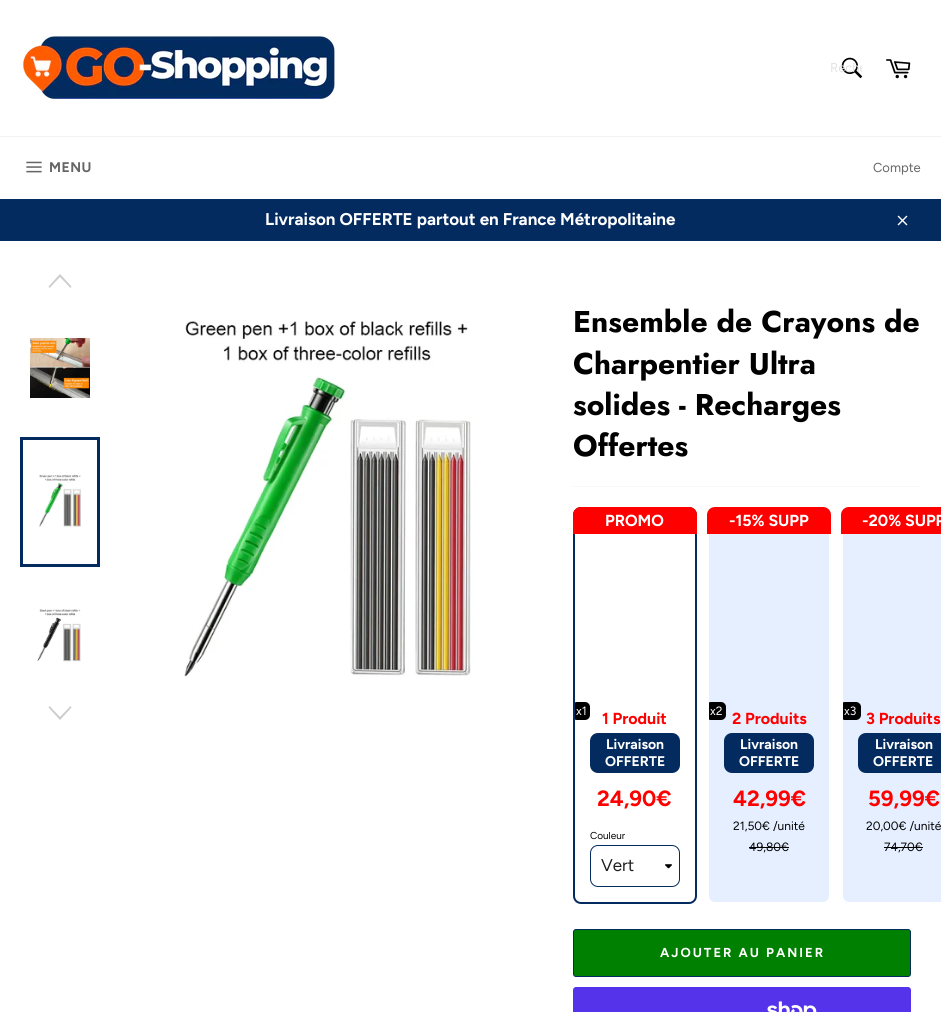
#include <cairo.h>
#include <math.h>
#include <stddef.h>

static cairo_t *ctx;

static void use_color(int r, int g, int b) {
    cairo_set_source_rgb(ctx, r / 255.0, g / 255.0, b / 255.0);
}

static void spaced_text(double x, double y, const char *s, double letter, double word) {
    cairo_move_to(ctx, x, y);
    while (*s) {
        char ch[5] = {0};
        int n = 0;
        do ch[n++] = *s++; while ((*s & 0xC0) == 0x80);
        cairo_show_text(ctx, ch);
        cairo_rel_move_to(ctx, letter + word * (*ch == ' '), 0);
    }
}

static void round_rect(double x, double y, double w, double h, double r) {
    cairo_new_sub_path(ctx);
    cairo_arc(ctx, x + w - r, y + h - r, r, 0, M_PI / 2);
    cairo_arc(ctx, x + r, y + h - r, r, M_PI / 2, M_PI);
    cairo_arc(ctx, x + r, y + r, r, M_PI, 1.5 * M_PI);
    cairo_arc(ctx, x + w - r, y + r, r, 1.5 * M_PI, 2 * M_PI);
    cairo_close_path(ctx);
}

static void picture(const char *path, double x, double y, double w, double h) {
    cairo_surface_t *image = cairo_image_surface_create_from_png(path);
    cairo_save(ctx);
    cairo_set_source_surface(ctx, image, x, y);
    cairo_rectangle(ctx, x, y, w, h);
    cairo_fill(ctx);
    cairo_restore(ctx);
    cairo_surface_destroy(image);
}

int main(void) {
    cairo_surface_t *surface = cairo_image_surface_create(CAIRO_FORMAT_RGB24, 941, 1012);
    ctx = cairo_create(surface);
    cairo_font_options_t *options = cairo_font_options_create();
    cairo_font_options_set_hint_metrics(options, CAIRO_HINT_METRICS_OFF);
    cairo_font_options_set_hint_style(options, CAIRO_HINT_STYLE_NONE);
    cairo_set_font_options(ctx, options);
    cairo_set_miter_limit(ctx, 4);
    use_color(255, 255, 255);
    cairo_paint(ctx);
    picture("img1.png", 23, 36, 312, 63);
    picture("img2.png", 841, 57, 22, 22);
    cairo_save(ctx);
    cairo_rectangle(ctx, 830, 60, 32, 15);
    cairo_clip(ctx);
    cairo_select_font_face(ctx, "Figtree", CAIRO_FONT_SLANT_NORMAL, CAIRO_FONT_WEIGHT_NORMAL);
    cairo_set_font_size(ctx, 13);
    use_color(226, 226, 226);
    cairo_move_to(ctx, 830, 72);
    cairo_show_text(ctx, "Reche");
    cairo_restore(ctx);
    picture("img3.png", 886, 59, 25, 20);
    use_color(242, 242, 242);
    cairo_rectangle(ctx, 0, 136, 941, 1);
    cairo_fill(ctx);
    picture("img4.png", 26, 161, 16, 12);
    cairo_select_font_face(ctx, "Figtree", CAIRO_FONT_SLANT_NORMAL, CAIRO_FONT_WEIGHT_BOLD);
    cairo_set_font_size(ctx, 14);
    use_color(102, 102, 102);
    spaced_text(49, 172, "MENU", 0.5, 0);
    cairo_select_font_face(ctx, "Figtree", CAIRO_FONT_SLANT_NORMAL, CAIRO_FONT_WEIGHT_NORMAL);
    cairo_set_font_size(ctx, 13);
    cairo_move_to(ctx, 873, 172);
    cairo_show_text(ctx, "Compte");
    use_color(4, 43, 96);
    cairo_rectangle(ctx, 0, 199, 941, 42);
    cairo_fill(ctx);
    cairo_select_font_face(ctx, "Figtree", CAIRO_FONT_SLANT_NORMAL, CAIRO_FONT_WEIGHT_BOLD);
    cairo_set_font_size(ctx, 17);
    use_color(255, 255, 255);
    cairo_move_to(ctx, 265, 225);
    cairo_show_text(ctx, "Livraison OFFERTE partout en France Métropolitaine");
    picture("img5.png", 897, 215, 11, 11);
    use_color(204, 204, 204);
    cairo_new_path(ctx);
    cairo_move_to(ctx, 70.5, 288);
    cairo_line_to(ctx, 71.5, 286.5);
    cairo_line_to(ctx, 60, 274);
    cairo_line_to(ctx, 48.5, 286.5);
    cairo_line_to(ctx, 49.5, 288);
    cairo_line_to(ctx, 60, 277);
    cairo_close_path(ctx);
    cairo_fill(ctx);
    picture("img6.png", 30, 338, 60, 60);
    picture("img7.png", 39, 474, 42, 53);
    cairo_rectangle(ctx, 21.5, 438.5, 77, 127);
    use_color(4, 43, 96);
    cairo_set_line_width(ctx, 3);
    cairo_stroke(ctx);
    picture("img8.png", 37, 609, 44, 53);
    use_color(204, 204, 204);
    cairo_new_path(ctx);
    cairo_move_to(ctx, 70.5, 706);
    cairo_line_to(ctx, 71.5, 707.5);
    cairo_line_to(ctx, 60, 720);
    cairo_line_to(ctx, 48.5, 707.5);
    cairo_line_to(ctx, 49.5, 706);
    cairo_line_to(ctx, 60, 717);
    cairo_close_path(ctx);
    cairo_fill(ctx);
    picture("img9.png", 184, 320, 287, 357);
    cairo_select_font_face(ctx, "Jost", CAIRO_FONT_SLANT_NORMAL, CAIRO_FONT_WEIGHT_BOLD);
    cairo_set_font_size(ctx, 30);
    use_color(0, 0, 0);
    cairo_move_to(ctx, 573, 332);
    cairo_show_text(ctx, "Ensemble de Crayons de");
    cairo_move_to(ctx, 573, 374);
    cairo_show_text(ctx, "Charpentier Ultra");
    cairo_move_to(ctx, 573, 415);
    cairo_show_text(ctx, "solides - Recharges");
    cairo_move_to(ctx, 573, 456);
    cairo_show_text(ctx, "Offertes");
    use_color(247, 247, 247);
    cairo_rectangle(ctx, 573, 486, 348, 1);
    cairo_fill(ctx);
    round_rect(574, 508, 122, 395, 7);
    use_color(4, 43, 95);
    cairo_set_line_width(ctx, 2);
    cairo_stroke(ctx);
    use_color(255, 0, 0);
    cairo_new_path(ctx);
    cairo_move_to(ctx, 581, 507);
    cairo_line_to(ctx, 689, 507);
    cairo_curve_to(ctx, 693.5, 507, 697, 510.5, 697, 515);
    cairo_line_to(ctx, 697, 534);
    cairo_line_to(ctx, 573, 534);
    cairo_line_to(ctx, 573, 515);
    cairo_curve_to(ctx, 573, 510.5, 576.5, 507, 581, 507);
    cairo_close_path(ctx);
    cairo_fill(ctx);
    cairo_select_font_face(ctx, "Figtree", CAIRO_FONT_SLANT_NORMAL, CAIRO_FONT_WEIGHT_BOLD);
    cairo_set_font_size(ctx, 16);
    use_color(255, 255, 255);
    cairo_move_to(ctx, 605, 526);
    cairo_show_text(ctx, "PROMO");
    cairo_save(ctx);
    round_rect(575, 509, 120, 393, 6);
    cairo_clip(ctx);
    use_color(0, 0, 0);
    round_rect(572, 702, 18, 18, 5);
    cairo_fill(ctx);
    cairo_restore(ctx);
    cairo_select_font_face(ctx, "Figtree", CAIRO_FONT_SLANT_NORMAL, CAIRO_FONT_WEIGHT_NORMAL);
    cairo_set_font_size(ctx, 12);
    cairo_move_to(ctx, 576, 715);
    cairo_show_text(ctx, "x1");
    cairo_select_font_face(ctx, "Figtree", CAIRO_FONT_SLANT_NORMAL, CAIRO_FONT_WEIGHT_BOLD);
    cairo_set_font_size(ctx, 16);
    use_color(255, 0, 0);
    cairo_move_to(ctx, 602, 724);
    cairo_show_text(ctx, "1 Produit");
    use_color(4, 43, 95);
    round_rect(590, 733, 90, 40, 8);
    cairo_fill(ctx);
    cairo_set_font_size(ctx, 14);
    use_color(255, 255, 255);
    cairo_move_to(ctx, 606, 749);
    cairo_show_text(ctx, "Livraison");
    cairo_move_to(ctx, 605, 766);
    cairo_show_text(ctx, "OFFERTE");
    cairo_set_font_size(ctx, 22);
    use_color(255, 0, 0);
    cairo_move_to(ctx, 597, 806);
    cairo_show_text(ctx, "24,90€");
    cairo_select_font_face(ctx, "Figtree", CAIRO_FONT_SLANT_NORMAL, CAIRO_FONT_WEIGHT_NORMAL);
    cairo_set_font_size(ctx, 10);
    use_color(0, 0, 0);
    cairo_move_to(ctx, 590, 839);
    cairo_show_text(ctx, "Couleur");
    picture("img10.png", 665, 864, 7, 5);
    round_rect(590.5, 845.5, 89, 41, 7.5);
    use_color(4, 43, 95);
    cairo_set_line_width(ctx, 1);
    cairo_stroke(ctx);
    cairo_set_font_size(ctx, 17);
    use_color(28, 29, 29);
    cairo_move_to(ctx, 601, 871);
    cairo_show_text(ctx, "Vert");
    use_color(230, 239, 255);
    round_rect(708, 508, 122, 395, 7);
    cairo_fill_preserve(ctx);
    use_color(255, 255, 255);
    cairo_set_line_width(ctx, 2);
    cairo_stroke(ctx);
    use_color(255, 0, 0);
    cairo_new_path(ctx);
    cairo_move_to(ctx, 715, 507);
    cairo_line_to(ctx, 823, 507);
    cairo_curve_to(ctx, 827.5, 507, 831, 510.5, 831, 515);
    cairo_line_to(ctx, 831, 534);
    cairo_line_to(ctx, 707, 534);
    cairo_line_to(ctx, 707, 515);
    cairo_curve_to(ctx, 707, 510.5, 710.5, 507, 715, 507);
    cairo_close_path(ctx);
    cairo_fill(ctx);
    cairo_select_font_face(ctx, "Figtree", CAIRO_FONT_SLANT_NORMAL, CAIRO_FONT_WEIGHT_BOLD);
    cairo_set_font_size(ctx, 16);
    use_color(255, 255, 255);
    cairo_move_to(ctx, 729, 526);
    cairo_show_text(ctx, "-15% SUPP");
    cairo_save(ctx);
    round_rect(709, 509, 120, 393, 6);
    cairo_clip(ctx);
    use_color(0, 0, 0);
    round_rect(706, 702, 20, 18, 5);
    cairo_fill(ctx);
    cairo_restore(ctx);
    cairo_select_font_face(ctx, "Figtree", CAIRO_FONT_SLANT_NORMAL, CAIRO_FONT_WEIGHT_NORMAL);
    cairo_set_font_size(ctx, 12);
    cairo_move_to(ctx, 710, 715);
    cairo_show_text(ctx, "x2");
    cairo_select_font_face(ctx, "Figtree", CAIRO_FONT_SLANT_NORMAL, CAIRO_FONT_WEIGHT_BOLD);
    cairo_set_font_size(ctx, 16);
    use_color(255, 0, 0);
    cairo_move_to(ctx, 732, 724);
    cairo_show_text(ctx, "2 Produits");
    use_color(4, 43, 95);
    round_rect(724, 733, 90, 40, 8);
    cairo_fill(ctx);
    cairo_set_font_size(ctx, 14);
    use_color(255, 255, 255);
    cairo_move_to(ctx, 740, 749);
    cairo_show_text(ctx, "Livraison");
    cairo_move_to(ctx, 739, 766);
    cairo_show_text(ctx, "OFFERTE");
    cairo_set_font_size(ctx, 22);
    use_color(255, 0, 0);
    cairo_move_to(ctx, 733, 806);
    cairo_show_text(ctx, "42,99€");
    cairo_select_font_face(ctx, "Figtree", CAIRO_FONT_SLANT_NORMAL, CAIRO_FONT_WEIGHT_NORMAL);
    cairo_set_font_size(ctx, 12);
    use_color(0, 0, 0);
    cairo_move_to(ctx, 733, 830);
    cairo_show_text(ctx, "21,50€ /unité");
    cairo_move_to(ctx, 749, 851);
    cairo_show_text(ctx, "49,80€");
    cairo_rectangle(ctx, 749, 847, 40, 1);
    cairo_fill(ctx);
    use_color(230, 239, 255);
    cairo_new_path(ctx);
    cairo_move_to(ctx, 849, 507);
    cairo_line_to(ctx, 941, 507);
    cairo_line_to(ctx, 941, 904);
    cairo_line_to(ctx, 849, 904);
    cairo_curve_to(ctx, 844.5, 904, 841, 900.5, 841, 896);
    cairo_line_to(ctx, 841, 515);
    cairo_curve_to(ctx, 841, 510.5, 844.5, 507, 849, 507);
    cairo_close_path(ctx);
    cairo_fill(ctx);
    round_rect(842, 508, 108, 395, 7);
    use_color(255, 255, 255);
    cairo_stroke(ctx);
    use_color(255, 0, 0);
    cairo_new_path(ctx);
    cairo_move_to(ctx, 849, 507);
    cairo_line_to(ctx, 941, 507);
    cairo_line_to(ctx, 941, 534);
    cairo_line_to(ctx, 841, 534);
    cairo_line_to(ctx, 841, 515);
    cairo_curve_to(ctx, 841, 510.5, 844.5, 507, 849, 507);
    cairo_close_path(ctx);
    cairo_fill(ctx);
    cairo_select_font_face(ctx, "Figtree", CAIRO_FONT_SLANT_NORMAL, CAIRO_FONT_WEIGHT_BOLD);
    cairo_set_font_size(ctx, 16);
    use_color(255, 255, 255);
    cairo_move_to(ctx, 862, 526);
    cairo_show_text(ctx, "-20% SUPP");
    cairo_save(ctx);
    round_rect(843, 509, 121, 393, 6);
    cairo_clip(ctx);
    use_color(0, 0, 0);
    round_rect(840, 702, 21, 18, 5);
    cairo_fill(ctx);
    cairo_restore(ctx);
    cairo_select_font_face(ctx, "Figtree", CAIRO_FONT_SLANT_NORMAL, CAIRO_FONT_WEIGHT_NORMAL);
    cairo_set_font_size(ctx, 12);
    cairo_move_to(ctx, 844, 715);
    cairo_show_text(ctx, "x3");
    cairo_select_font_face(ctx, "Figtree", CAIRO_FONT_SLANT_NORMAL, CAIRO_FONT_WEIGHT_BOLD);
    cairo_set_font_size(ctx, 16);
    use_color(255, 0, 0);
    cairo_move_to(ctx, 866, 724);
    cairo_show_text(ctx, "3 Produits");
    use_color(4, 43, 95);
    cairo_new_path(ctx);
    cairo_move_to(ctx, 866, 733);
    cairo_line_to(ctx, 941, 733);
    cairo_line_to(ctx, 941, 773);
    cairo_line_to(ctx, 866, 773);
    cairo_curve_to(ctx, 861.5, 773, 858, 769.5, 858, 765);
    cairo_line_to(ctx, 858, 741);
    cairo_curve_to(ctx, 858, 736.5, 861.5, 733, 866, 733);
    cairo_close_path(ctx);
    cairo_fill(ctx);
    cairo_set_font_size(ctx, 14);
    use_color(255, 255, 255);
    cairo_move_to(ctx, 875, 749);
    cairo_show_text(ctx, "Livraison");
    cairo_move_to(ctx, 873, 766);
    cairo_show_text(ctx, "OFFERTE");
    cairo_set_font_size(ctx, 22);
    use_color(255, 0, 0);
    cairo_move_to(ctx, 868, 806);
    cairo_show_text(ctx, "59,99€");
    cairo_select_font_face(ctx, "Figtree", CAIRO_FONT_SLANT_NORMAL, CAIRO_FONT_WEIGHT_NORMAL);
    cairo_set_font_size(ctx, 12);
    use_color(0, 0, 0);
    cairo_move_to(ctx, 866, 830);
    cairo_show_text(ctx, "20,00€ /unité");
    cairo_move_to(ctx, 884, 851);
    cairo_show_text(ctx, "74,70€");
    cairo_rectangle(ctx, 884, 847, 39, 1);
    cairo_fill(ctx);
    use_color(0, 128, 0);
    round_rect(573.5, 929.5, 337, 47, 2.5);
    cairo_fill_preserve(ctx);
    use_color(4, 43, 96);
    cairo_set_line_width(ctx, 1);
    cairo_stroke(ctx);
    cairo_select_font_face(ctx, "Figtree", CAIRO_FONT_SLANT_NORMAL, CAIRO_FONT_WEIGHT_BOLD);
    cairo_set_font_size(ctx, 13);
    use_color(255, 255, 255);
    spaced_text(660, 957, "AJOUTER AU PANIER", 2, 0);
    use_color(84, 51, 235);
    round_rect(573, 987, 338, 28, 3);
    cairo_fill(ctx);
    picture("img11.png", 767, 1001, 50, 11);
    cairo_surface_write_to_png(surface, "result.png");
    cairo_font_options_destroy(options);
    cairo_destroy(ctx);
    cairo_surface_destroy(surface);
    return 0;
}
